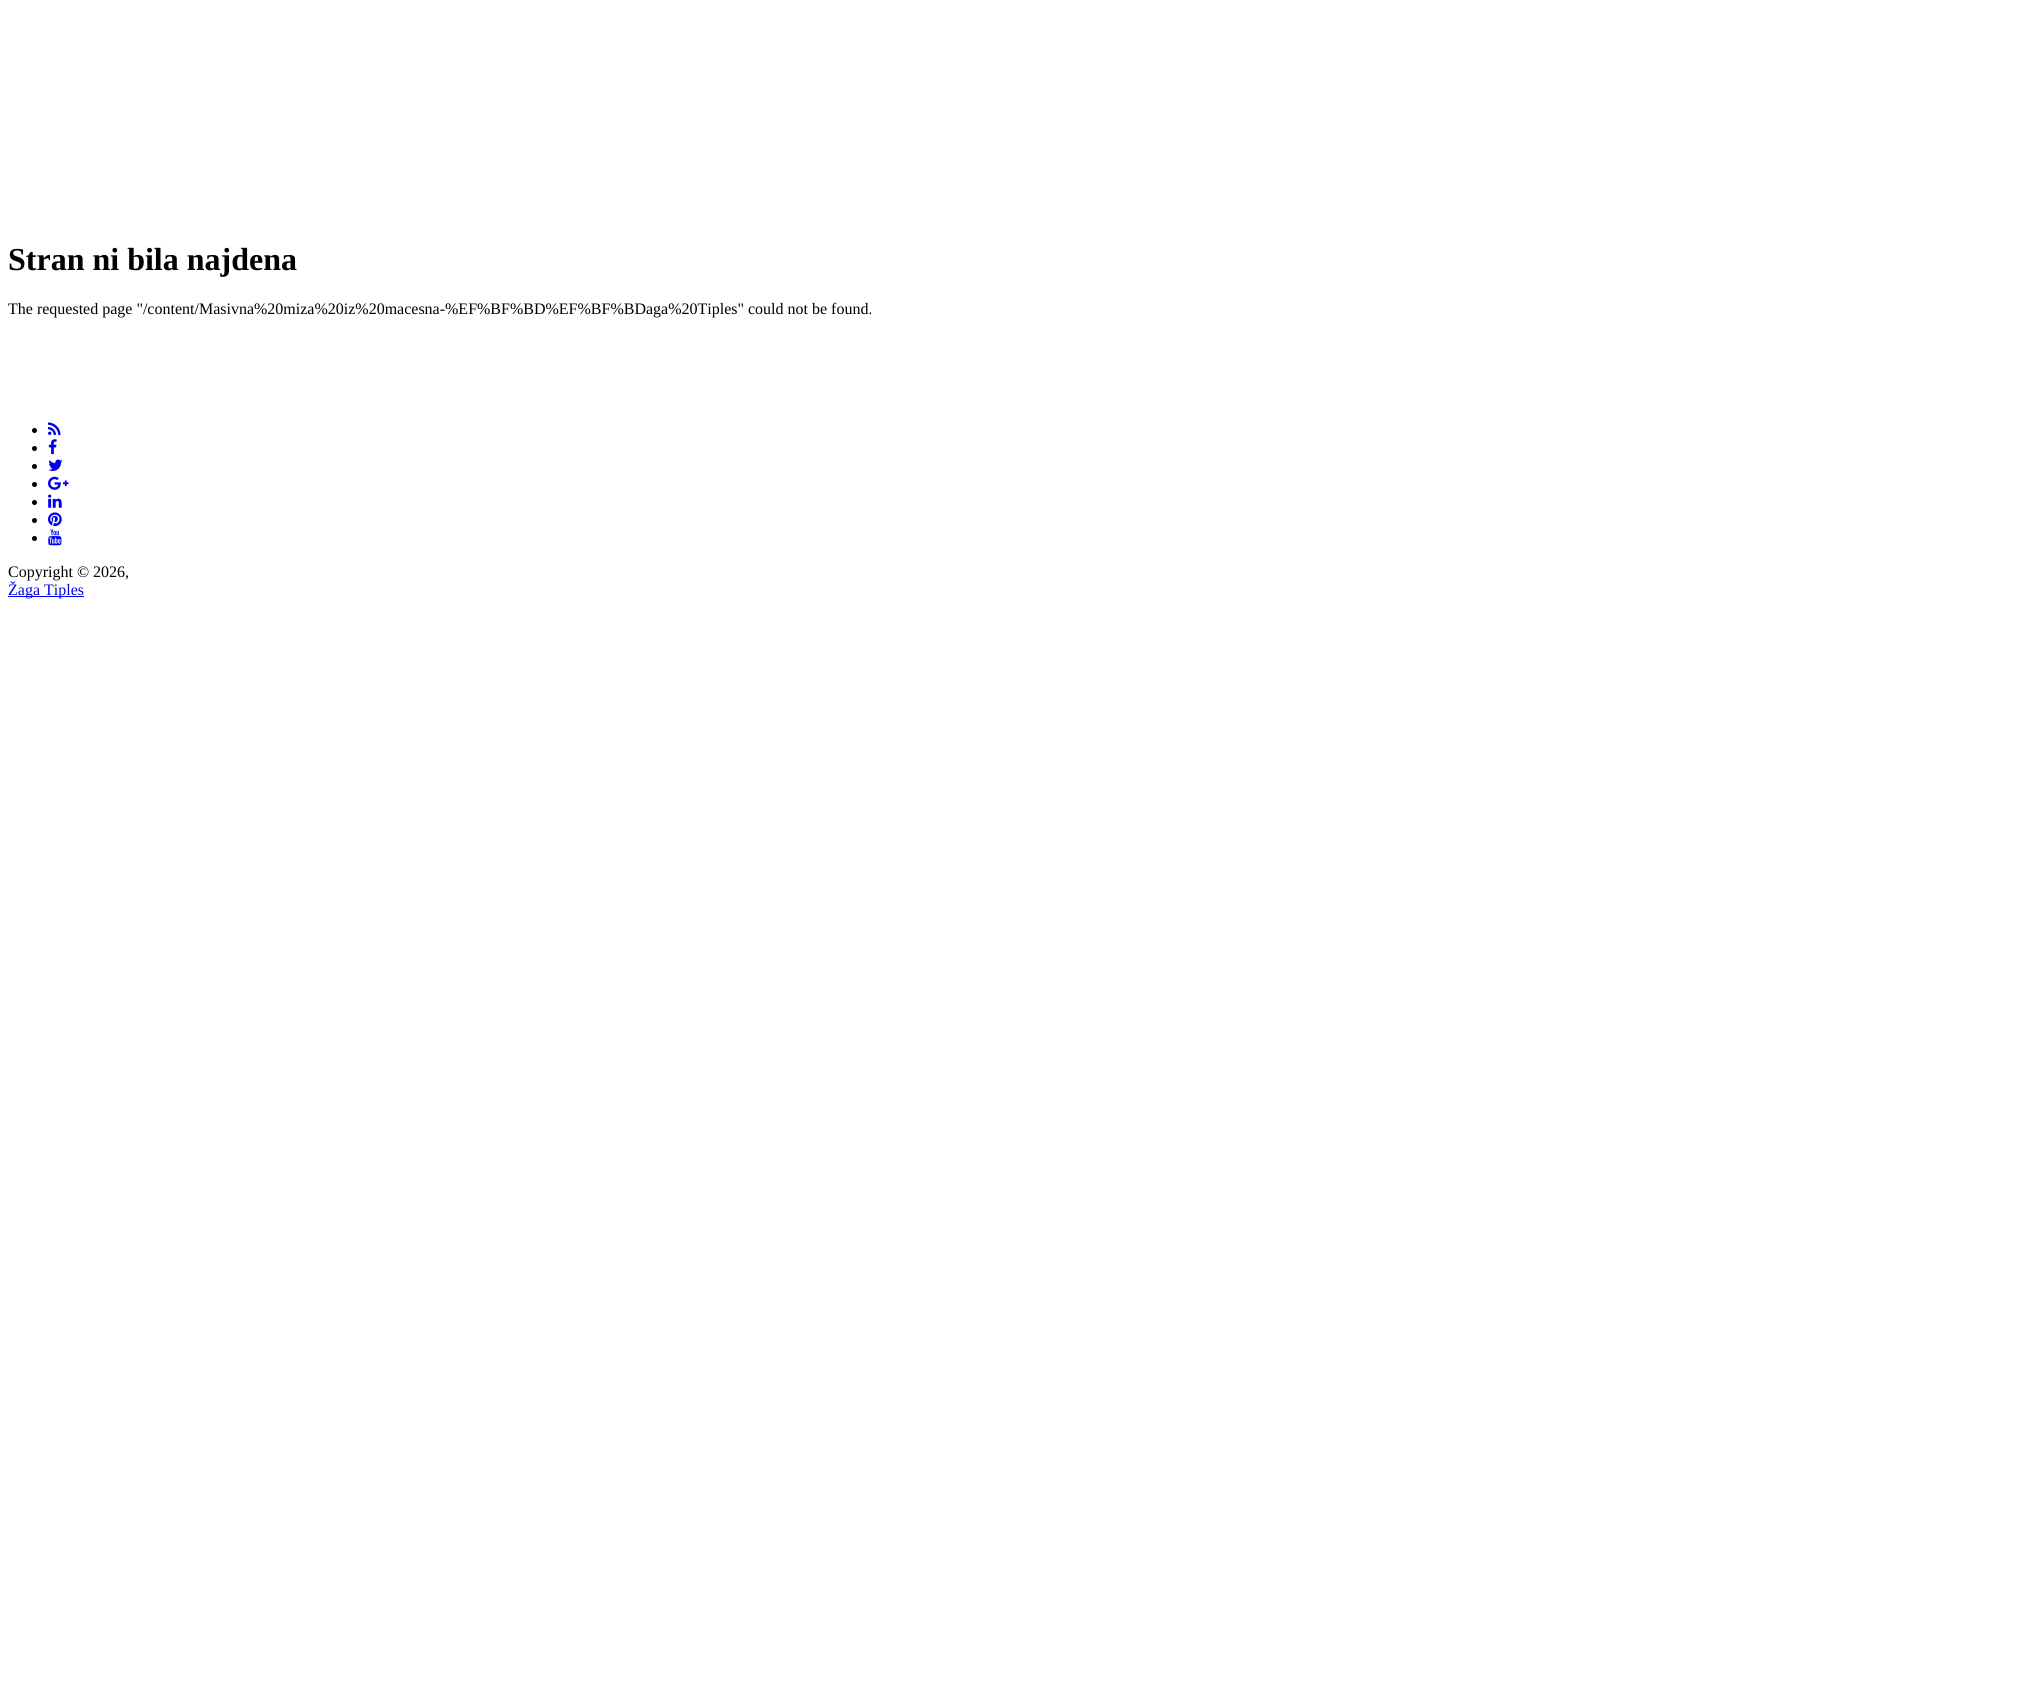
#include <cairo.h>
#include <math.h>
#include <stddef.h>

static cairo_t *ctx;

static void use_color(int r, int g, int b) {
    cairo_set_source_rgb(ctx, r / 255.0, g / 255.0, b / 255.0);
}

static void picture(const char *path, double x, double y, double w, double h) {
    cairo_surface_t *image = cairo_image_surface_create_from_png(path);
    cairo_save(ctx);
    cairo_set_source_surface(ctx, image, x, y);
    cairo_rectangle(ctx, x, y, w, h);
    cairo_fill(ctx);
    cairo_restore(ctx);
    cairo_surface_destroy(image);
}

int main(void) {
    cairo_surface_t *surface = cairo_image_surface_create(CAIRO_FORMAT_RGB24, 2031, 1708);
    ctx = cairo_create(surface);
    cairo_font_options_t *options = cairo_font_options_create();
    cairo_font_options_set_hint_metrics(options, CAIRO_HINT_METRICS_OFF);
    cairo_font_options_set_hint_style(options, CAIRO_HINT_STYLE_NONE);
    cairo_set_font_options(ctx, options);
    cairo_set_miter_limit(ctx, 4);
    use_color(255, 255, 255);
    cairo_paint(ctx);
    cairo_select_font_face(ctx, "Liberation Serif", CAIRO_FONT_SLANT_NORMAL, CAIRO_FONT_WEIGHT_BOLD);
    cairo_set_font_size(ctx, 32);
    use_color(0, 0, 0);
    cairo_move_to(ctx, 8, 270);
    cairo_show_text(ctx, "Stran ni bila najdena");
    cairo_select_font_face(ctx, "Liberation Serif", CAIRO_FONT_SLANT_NORMAL, CAIRO_FONT_WEIGHT_NORMAL);
    cairo_set_font_size(ctx, 16);
    cairo_move_to(ctx, 8, 314);
    cairo_show_text(ctx, "The requested page \"/content/Masivna%20miza%20iz%20macesna-%EF%BF%BD%EF%BF%BDaga%20Tiples\" could not be found.");
    cairo_new_path(ctx);
    cairo_arc(ctx, 34.5, 430.5, 2.5, 0, 2 * M_PI);
    cairo_fill(ctx);
    picture("img1.png", 48, 422, 13, 13);
    cairo_arc(ctx, 34.5, 448.5, 2.5, 0, 2 * M_PI);
    cairo_fill(ctx);
    picture("img2.png", 48, 439, 9, 16);
    cairo_arc(ctx, 34.5, 466.5, 2.5, 0, 2 * M_PI);
    cairo_fill(ctx);
    picture("img3.png", 48, 459, 15, 12);
    cairo_arc(ctx, 34.5, 484.5, 2.5, 0, 2 * M_PI);
    cairo_fill(ctx);
    picture("img4.png", 48, 476, 21, 14);
    cairo_arc(ctx, 34.5, 502.5, 2.5, 0, 2 * M_PI);
    cairo_fill(ctx);
    picture("img5.png", 48, 494, 14, 14);
    cairo_arc(ctx, 34.5, 520.5, 2.5, 0, 2 * M_PI);
    cairo_fill(ctx);
    picture("img6.png", 48, 512, 14, 15);
    cairo_arc(ctx, 34.5, 538.5, 2.5, 0, 2 * M_PI);
    cairo_fill(ctx);
    picture("img7.png", 48, 529, 14, 17);
    cairo_move_to(ctx, 8, 577);
    cairo_show_text(ctx, "Copyright © 2026,");
    use_color(0, 0, 238);
    cairo_rectangle(ctx, 8, 596, 76, 1);
    cairo_fill(ctx);
    cairo_move_to(ctx, 8, 595);
    cairo_show_text(ctx, "Žaga Tiples");
    cairo_surface_write_to_png(surface, "result.png");
    cairo_font_options_destroy(options);
    cairo_destroy(ctx);
    cairo_surface_destroy(surface);
    return 0;
}
